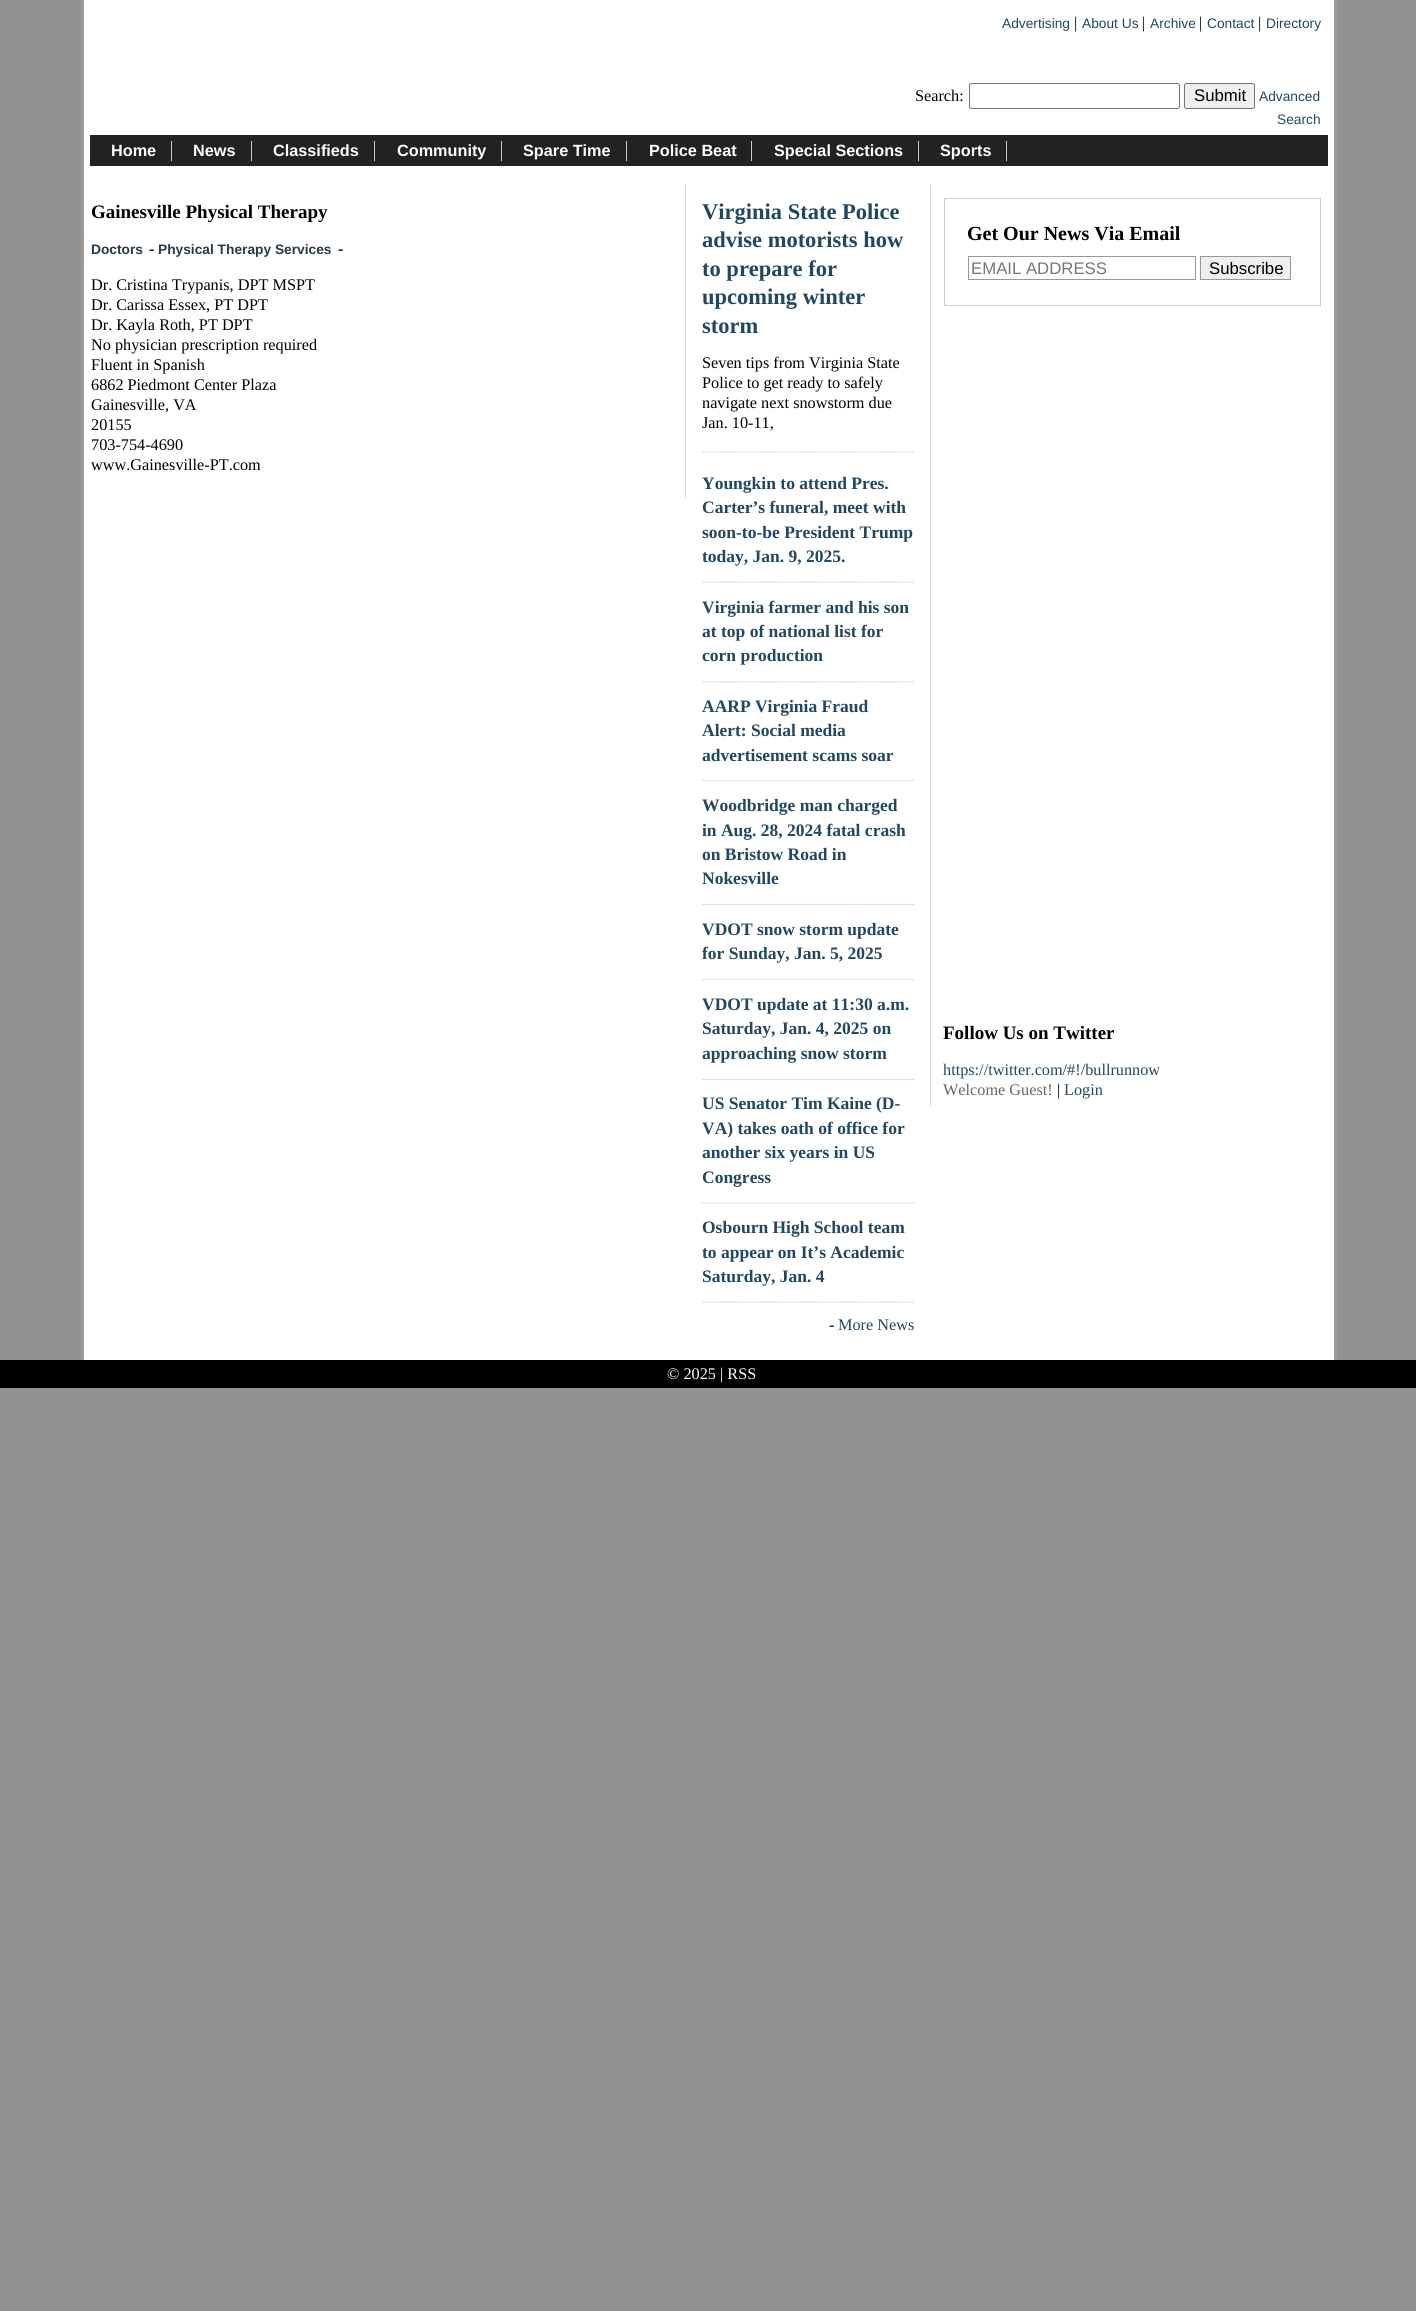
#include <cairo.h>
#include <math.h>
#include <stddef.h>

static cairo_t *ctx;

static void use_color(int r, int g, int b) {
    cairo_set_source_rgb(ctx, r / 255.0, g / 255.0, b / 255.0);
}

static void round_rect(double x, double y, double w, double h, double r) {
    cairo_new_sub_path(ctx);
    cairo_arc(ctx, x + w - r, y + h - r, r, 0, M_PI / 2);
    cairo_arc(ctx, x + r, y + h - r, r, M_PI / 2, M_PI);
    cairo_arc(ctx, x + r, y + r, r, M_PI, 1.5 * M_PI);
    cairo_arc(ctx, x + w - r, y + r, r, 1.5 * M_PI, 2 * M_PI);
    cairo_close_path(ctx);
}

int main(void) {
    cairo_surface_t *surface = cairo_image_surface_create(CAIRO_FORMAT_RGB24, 1416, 2311);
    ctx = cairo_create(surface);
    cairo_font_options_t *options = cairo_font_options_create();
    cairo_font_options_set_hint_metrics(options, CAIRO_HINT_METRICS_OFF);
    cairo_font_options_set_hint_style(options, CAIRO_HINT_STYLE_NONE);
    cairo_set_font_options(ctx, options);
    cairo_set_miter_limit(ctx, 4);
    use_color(145, 145, 145);
    cairo_paint(ctx);
    use_color(255, 255, 255);
    cairo_rectangle(ctx, 84, 0, 1250, 1360);
    cairo_fill(ctx);
    use_color(155, 155, 155);
    cairo_rectangle(ctx, 1334, 0, 3, 1360);
    cairo_fill(ctx);
    cairo_rectangle(ctx, 81, 0, 3, 1360);
    cairo_fill(ctx);
    cairo_select_font_face(ctx, "Liberation Sans", CAIRO_FONT_SLANT_NORMAL, CAIRO_FONT_WEIGHT_NORMAL);
    cairo_set_font_size(ctx, 13.75);
    use_color(33, 71, 97);
    cairo_move_to(ctx, 1002, 28);
    cairo_show_text(ctx, "Advertising");
    cairo_select_font_face(ctx, "Liberation Serif", CAIRO_FONT_SLANT_NORMAL, CAIRO_FONT_WEIGHT_NORMAL);
    cairo_set_font_size(ctx, 16.25);
    use_color(0, 0, 0);
    cairo_move_to(ctx, 1074, 28);
    cairo_show_text(ctx, "|");
    cairo_select_font_face(ctx, "Liberation Sans", CAIRO_FONT_SLANT_NORMAL, CAIRO_FONT_WEIGHT_NORMAL);
    cairo_set_font_size(ctx, 13.75);
    use_color(33, 71, 97);
    cairo_move_to(ctx, 1082, 28);
    cairo_show_text(ctx, "About Us");
    cairo_select_font_face(ctx, "Liberation Serif", CAIRO_FONT_SLANT_NORMAL, CAIRO_FONT_WEIGHT_NORMAL);
    cairo_set_font_size(ctx, 16.25);
    use_color(0, 0, 0);
    cairo_move_to(ctx, 1142, 28);
    cairo_show_text(ctx, "|");
    cairo_select_font_face(ctx, "Liberation Sans", CAIRO_FONT_SLANT_NORMAL, CAIRO_FONT_WEIGHT_NORMAL);
    cairo_set_font_size(ctx, 13.75);
    use_color(33, 71, 97);
    cairo_move_to(ctx, 1150, 28);
    cairo_show_text(ctx, "Archive");
    cairo_select_font_face(ctx, "Liberation Serif", CAIRO_FONT_SLANT_NORMAL, CAIRO_FONT_WEIGHT_NORMAL);
    cairo_set_font_size(ctx, 16.25);
    use_color(0, 0, 0);
    cairo_move_to(ctx, 1199, 28);
    cairo_show_text(ctx, "|");
    cairo_select_font_face(ctx, "Liberation Sans", CAIRO_FONT_SLANT_NORMAL, CAIRO_FONT_WEIGHT_NORMAL);
    cairo_set_font_size(ctx, 13.75);
    use_color(33, 71, 97);
    cairo_move_to(ctx, 1207, 28);
    cairo_show_text(ctx, "Contact");
    cairo_select_font_face(ctx, "Liberation Serif", CAIRO_FONT_SLANT_NORMAL, CAIRO_FONT_WEIGHT_NORMAL);
    cairo_set_font_size(ctx, 16.25);
    use_color(0, 0, 0);
    cairo_move_to(ctx, 1258, 28);
    cairo_show_text(ctx, "|");
    cairo_select_font_face(ctx, "Liberation Sans", CAIRO_FONT_SLANT_NORMAL, CAIRO_FONT_WEIGHT_NORMAL);
    cairo_set_font_size(ctx, 13.75);
    use_color(33, 71, 97);
    cairo_move_to(ctx, 1266, 28);
    cairo_show_text(ctx, "Directory");
    cairo_select_font_face(ctx, "Liberation Serif", CAIRO_FONT_SLANT_NORMAL, CAIRO_FONT_WEIGHT_NORMAL);
    cairo_set_font_size(ctx, 16.25);
    use_color(0, 0, 0);
    cairo_move_to(ctx, 915, 101);
    cairo_show_text(ctx, "Search:");
    round_rect(969.5, 83.5, 210, 25, 2);
    use_color(118, 118, 118);
    cairo_set_line_width(ctx, 1);
    cairo_stroke(ctx);
    use_color(239, 239, 239);
    round_rect(1184.5, 83.5, 70, 25, 2);
    cairo_fill_preserve(ctx);
    use_color(118, 118, 118);
    cairo_stroke(ctx);
    cairo_select_font_face(ctx, "Liberation Sans", CAIRO_FONT_SLANT_NORMAL, CAIRO_FONT_WEIGHT_NORMAL);
    cairo_set_font_size(ctx, 16.75);
    use_color(0, 0, 0);
    cairo_move_to(ctx, 1194, 101);
    cairo_show_text(ctx, "Submit");
    cairo_set_font_size(ctx, 13.75);
    use_color(33, 71, 97);
    cairo_move_to(ctx, 1259, 101);
    cairo_show_text(ctx, "Advanced");
    cairo_move_to(ctx, 1277, 124);
    cairo_show_text(ctx, "Search");
    use_color(34, 34, 34);
    cairo_rectangle(ctx, 90, 135, 1238, 31);
    cairo_fill(ctx);
    use_color(204, 204, 204);
    cairo_rectangle(ctx, 171, 141, 1, 20);
    cairo_fill(ctx);
    cairo_select_font_face(ctx, "Liberation Sans", CAIRO_FONT_SLANT_NORMAL, CAIRO_FONT_WEIGHT_BOLD);
    cairo_set_font_size(ctx, 16.25);
    use_color(255, 255, 255);
    cairo_move_to(ctx, 111, 156);
    cairo_show_text(ctx, "Home");
    use_color(204, 204, 204);
    cairo_rectangle(ctx, 251, 141, 1, 20);
    cairo_fill(ctx);
    use_color(255, 255, 255);
    cairo_move_to(ctx, 193, 156);
    cairo_show_text(ctx, "News");
    use_color(204, 204, 204);
    cairo_rectangle(ctx, 374, 141, 1, 20);
    cairo_fill(ctx);
    use_color(255, 255, 255);
    cairo_move_to(ctx, 273, 156);
    cairo_show_text(ctx, "Classifieds");
    use_color(204, 204, 204);
    cairo_rectangle(ctx, 501, 141, 1, 20);
    cairo_fill(ctx);
    use_color(255, 255, 255);
    cairo_move_to(ctx, 397, 156);
    cairo_show_text(ctx, "Community");
    use_color(204, 204, 204);
    cairo_rectangle(ctx, 626, 141, 1, 20);
    cairo_fill(ctx);
    use_color(255, 255, 255);
    cairo_move_to(ctx, 523, 156);
    cairo_show_text(ctx, "Spare Time");
    use_color(204, 204, 204);
    cairo_rectangle(ctx, 751, 141, 1, 20);
    cairo_fill(ctx);
    use_color(255, 255, 255);
    cairo_move_to(ctx, 649, 156);
    cairo_show_text(ctx, "Police Beat");
    use_color(204, 204, 204);
    cairo_rectangle(ctx, 918, 141, 1, 20);
    cairo_fill(ctx);
    use_color(255, 255, 255);
    cairo_move_to(ctx, 774, 156);
    cairo_show_text(ctx, "Special Sections");
    use_color(204, 204, 204);
    cairo_rectangle(ctx, 1006, 141, 1, 20);
    cairo_fill(ctx);
    use_color(255, 255, 255);
    cairo_move_to(ctx, 940, 156);
    cairo_show_text(ctx, "Sports");
    use_color(219, 219, 219);
    cairo_rectangle(ctx, 685, 185, 1, 313);
    cairo_fill(ctx);
    cairo_select_font_face(ctx, "Liberation Serif", CAIRO_FONT_SLANT_NORMAL, CAIRO_FONT_WEIGHT_BOLD);
    cairo_set_font_size(ctx, 19);
    use_color(0, 0, 0);
    cairo_move_to(ctx, 91, 218);
    cairo_show_text(ctx, "Gainesville Physical Therapy");
    cairo_select_font_face(ctx, "Liberation Sans", CAIRO_FONT_SLANT_NORMAL, CAIRO_FONT_WEIGHT_BOLD);
    cairo_set_font_size(ctx, 13.75);
    use_color(37, 58, 73);
    cairo_move_to(ctx, 91, 254);
    cairo_show_text(ctx, "Doctors");
    cairo_select_font_face(ctx, "Liberation Serif", CAIRO_FONT_SLANT_NORMAL, CAIRO_FONT_WEIGHT_BOLD);
    cairo_set_font_size(ctx, 16.25);
    use_color(0, 0, 0);
    cairo_move_to(ctx, 149, 254);
    cairo_show_text(ctx, "-");
    cairo_select_font_face(ctx, "Liberation Sans", CAIRO_FONT_SLANT_NORMAL, CAIRO_FONT_WEIGHT_BOLD);
    cairo_set_font_size(ctx, 13.75);
    use_color(37, 58, 73);
    cairo_move_to(ctx, 158, 254);
    cairo_show_text(ctx, "Physical Therapy Services");
    cairo_select_font_face(ctx, "Liberation Serif", CAIRO_FONT_SLANT_NORMAL, CAIRO_FONT_WEIGHT_BOLD);
    cairo_set_font_size(ctx, 16.25);
    use_color(0, 0, 0);
    cairo_move_to(ctx, 338, 254);
    cairo_show_text(ctx, "-");
    cairo_select_font_face(ctx, "Liberation Serif", CAIRO_FONT_SLANT_NORMAL, CAIRO_FONT_WEIGHT_NORMAL);
    cairo_move_to(ctx, 91, 290);
    cairo_show_text(ctx, "Dr. Cristina Trypanis, DPT MSPT");
    cairo_move_to(ctx, 91, 310);
    cairo_show_text(ctx, "Dr. Carissa Essex, PT DPT");
    cairo_move_to(ctx, 91, 330);
    cairo_show_text(ctx, "Dr. Kayla Roth, PT DPT");
    cairo_move_to(ctx, 91, 350);
    cairo_show_text(ctx, "No physician prescription required");
    cairo_move_to(ctx, 91, 370);
    cairo_show_text(ctx, "Fluent in Spanish");
    cairo_move_to(ctx, 91, 390);
    cairo_show_text(ctx, "6862 Piedmont Center Plaza");
    cairo_move_to(ctx, 91, 410);
    cairo_show_text(ctx, "Gainesville, VA");
    cairo_move_to(ctx, 91, 430);
    cairo_show_text(ctx, "20155");
    cairo_move_to(ctx, 91, 450);
    cairo_show_text(ctx, "703-754-4690");
    cairo_move_to(ctx, 91, 470);
    cairo_show_text(ctx, "www.Gainesville-PT.com");
    cairo_select_font_face(ctx, "Liberation Serif", CAIRO_FONT_SLANT_NORMAL, CAIRO_FONT_WEIGHT_BOLD);
    cairo_set_font_size(ctx, 22.5);
    use_color(33, 71, 97);
    cairo_move_to(ctx, 702, 219);
    cairo_show_text(ctx, "Virginia State Police");
    cairo_move_to(ctx, 702, 247);
    cairo_show_text(ctx, "advise motorists how");
    cairo_move_to(ctx, 702, 276);
    cairo_show_text(ctx, "to prepare for");
    cairo_move_to(ctx, 702, 304);
    cairo_show_text(ctx, "upcoming winter");
    cairo_move_to(ctx, 702, 333);
    cairo_show_text(ctx, "storm");
    cairo_new_path(ctx);
    cairo_move_to(ctx, 702.5, 452);
    cairo_line_to(ctx, 915, 452);
    use_color(204, 204, 204);
    cairo_set_line_width(ctx, 1.2);
    cairo_set_dash(ctx, (double[]){1.25, 1.25}, 2, 0);
    cairo_stroke(ctx);
    cairo_select_font_face(ctx, "Liberation Serif", CAIRO_FONT_SLANT_NORMAL, CAIRO_FONT_WEIGHT_NORMAL);
    cairo_set_font_size(ctx, 16.25);
    use_color(0, 0, 0);
    cairo_move_to(ctx, 702, 368);
    cairo_show_text(ctx, "Seven tips from Virginia State");
    cairo_move_to(ctx, 702, 388);
    cairo_show_text(ctx, "Police to get ready to safely");
    cairo_move_to(ctx, 702, 408);
    cairo_show_text(ctx, "navigate next snowstorm due");
    cairo_move_to(ctx, 702, 428);
    cairo_show_text(ctx, "Jan. 10-11,");
    cairo_select_font_face(ctx, "Liberation Serif", CAIRO_FONT_SLANT_NORMAL, CAIRO_FONT_WEIGHT_BOLD);
    cairo_set_font_size(ctx, 17.5);
    use_color(33, 71, 97);
    cairo_move_to(ctx, 702, 489);
    cairo_show_text(ctx, "Youngkin to attend Pres.");
    cairo_move_to(ctx, 702, 513);
    cairo_show_text(ctx, "Carter’s funeral, meet with");
    cairo_move_to(ctx, 702, 538);
    cairo_show_text(ctx, "soon-to-be President Trump");
    cairo_move_to(ctx, 702, 562);
    cairo_show_text(ctx, "today, Jan. 9, 2025.");
    cairo_new_path(ctx);
    cairo_move_to(ctx, 702.5, 582);
    cairo_line_to(ctx, 915, 582);
    use_color(204, 204, 204);
    cairo_stroke(ctx);
    use_color(33, 71, 97);
    cairo_move_to(ctx, 702, 613);
    cairo_show_text(ctx, "Virginia farmer and his son");
    cairo_move_to(ctx, 702, 637);
    cairo_show_text(ctx, "at top of national list for");
    cairo_move_to(ctx, 702, 661);
    cairo_show_text(ctx, "corn production");
    cairo_new_path(ctx);
    cairo_move_to(ctx, 702.5, 682);
    cairo_line_to(ctx, 915, 682);
    use_color(204, 204, 204);
    cairo_stroke(ctx);
    use_color(33, 71, 97);
    cairo_move_to(ctx, 702, 712);
    cairo_show_text(ctx, "AARP Virginia Fraud");
    cairo_move_to(ctx, 702, 736);
    cairo_show_text(ctx, "Alert: Social media");
    cairo_move_to(ctx, 702, 761);
    cairo_show_text(ctx, "advertisement scams soar");
    cairo_new_path(ctx);
    cairo_move_to(ctx, 702.5, 780.5);
    cairo_line_to(ctx, 915, 780.5);
    use_color(204, 204, 204);
    cairo_stroke(ctx);
    use_color(33, 71, 97);
    cairo_move_to(ctx, 702, 811);
    cairo_show_text(ctx, "Woodbridge man charged");
    cairo_move_to(ctx, 702, 836);
    cairo_show_text(ctx, "in Aug. 28, 2024 fatal crash");
    cairo_move_to(ctx, 702, 860);
    cairo_show_text(ctx, "on Bristow Road in");
    cairo_move_to(ctx, 702, 884);
    cairo_show_text(ctx, "Nokesville");
    cairo_new_path(ctx);
    cairo_move_to(ctx, 702.5, 904.5);
    cairo_line_to(ctx, 915, 904.5);
    use_color(204, 204, 204);
    cairo_stroke(ctx);
    use_color(33, 71, 97);
    cairo_move_to(ctx, 702, 935);
    cairo_show_text(ctx, "VDOT snow storm update");
    cairo_move_to(ctx, 702, 959);
    cairo_show_text(ctx, "for Sunday, Jan. 5, 2025");
    cairo_new_path(ctx);
    cairo_move_to(ctx, 702.5, 979.5);
    cairo_line_to(ctx, 915, 979.5);
    use_color(204, 204, 204);
    cairo_stroke(ctx);
    use_color(33, 71, 97);
    cairo_move_to(ctx, 702, 1010);
    cairo_show_text(ctx, "VDOT update at 11:30 a.m.");
    cairo_move_to(ctx, 702, 1034);
    cairo_show_text(ctx, "Saturday, Jan. 4, 2025 on");
    cairo_move_to(ctx, 702, 1059);
    cairo_show_text(ctx, "approaching snow storm");
    cairo_new_path(ctx);
    cairo_move_to(ctx, 702.5, 1079.5);
    cairo_line_to(ctx, 915, 1079.5);
    use_color(204, 204, 204);
    cairo_stroke(ctx);
    use_color(33, 71, 97);
    cairo_move_to(ctx, 702, 1109);
    cairo_show_text(ctx, "US Senator Tim Kaine (D-");
    cairo_move_to(ctx, 702, 1134);
    cairo_show_text(ctx, "VA) takes oath of office for");
    cairo_move_to(ctx, 702, 1158);
    cairo_show_text(ctx, "another six years in US");
    cairo_move_to(ctx, 702, 1183);
    cairo_show_text(ctx, "Congress");
    cairo_new_path(ctx);
    cairo_move_to(ctx, 702.5, 1203);
    cairo_line_to(ctx, 915, 1203);
    use_color(204, 204, 204);
    cairo_stroke(ctx);
    use_color(33, 71, 97);
    cairo_move_to(ctx, 702, 1233);
    cairo_show_text(ctx, "Osbourn High School team");
    cairo_move_to(ctx, 702, 1258);
    cairo_show_text(ctx, "to appear on It’s Academic");
    cairo_move_to(ctx, 702, 1282);
    cairo_show_text(ctx, "Saturday, Jan. 4");
    cairo_new_path(ctx);
    cairo_move_to(ctx, 702.5, 1302);
    cairo_line_to(ctx, 915, 1302);
    use_color(204, 204, 204);
    cairo_stroke(ctx);
    cairo_select_font_face(ctx, "Liberation Serif", CAIRO_FONT_SLANT_NORMAL, CAIRO_FONT_WEIGHT_NORMAL);
    cairo_set_font_size(ctx, 16.25);
    use_color(0, 0, 0);
    cairo_move_to(ctx, 829, 1330);
    cairo_show_text(ctx, "-");
    use_color(33, 71, 97);
    cairo_move_to(ctx, 838, 1330);
    cairo_show_text(ctx, "More News");
    use_color(219, 219, 219);
    cairo_rectangle(ctx, 930, 185, 1, 921);
    cairo_fill(ctx);
    cairo_rectangle(ctx, 944.5, 198.5, 376, 107);
    use_color(204, 204, 204);
    cairo_set_line_width(ctx, 1);
    cairo_set_dash(ctx, NULL, 0, 0);
    cairo_stroke(ctx);
    cairo_select_font_face(ctx, "Liberation Serif", CAIRO_FONT_SLANT_NORMAL, CAIRO_FONT_WEIGHT_BOLD);
    cairo_set_font_size(ctx, 20);
    use_color(0, 0, 0);
    cairo_move_to(ctx, 967, 240);
    cairo_show_text(ctx, "Get Our News Via Email");
    cairo_rectangle(ctx, 968.5, 256.5, 227, 23);
    use_color(153, 153, 153);
    cairo_stroke(ctx);
    cairo_select_font_face(ctx, "Liberation Sans", CAIRO_FONT_SLANT_NORMAL, CAIRO_FONT_WEIGHT_NORMAL);
    cairo_set_font_size(ctx, 16.75);
    use_color(117, 117, 117);
    cairo_move_to(ctx, 971, 274);
    cairo_show_text(ctx, "EMAIL ADDRESS");
    use_color(239, 239, 239);
    cairo_rectangle(ctx, 1200.5, 256.5, 90, 23);
    cairo_fill_preserve(ctx);
    use_color(153, 153, 153);
    cairo_stroke(ctx);
    use_color(0, 0, 0);
    cairo_move_to(ctx, 1209, 274);
    cairo_show_text(ctx, "Subscribe");
    cairo_select_font_face(ctx, "Liberation Serif", CAIRO_FONT_SLANT_NORMAL, CAIRO_FONT_WEIGHT_BOLD);
    cairo_set_font_size(ctx, 19);
    cairo_move_to(ctx, 943, 1039);
    cairo_show_text(ctx, "Follow Us on Twitter");
    cairo_select_font_face(ctx, "Liberation Serif", CAIRO_FONT_SLANT_NORMAL, CAIRO_FONT_WEIGHT_NORMAL);
    cairo_set_font_size(ctx, 16.25);
    use_color(33, 71, 97);
    cairo_move_to(ctx, 943, 1075);
    cairo_show_text(ctx, "https://twitter.com/#!/bullrunnow");
    use_color(102, 102, 102);
    cairo_move_to(ctx, 943, 1095);
    cairo_show_text(ctx, "Welcome Guest!");
    use_color(0, 0, 0);
    cairo_move_to(ctx, 1057, 1095);
    cairo_show_text(ctx, "|");
    use_color(33, 71, 97);
    cairo_move_to(ctx, 1064, 1095);
    cairo_show_text(ctx, "Login");
    use_color(0, 0, 0);
    cairo_rectangle(ctx, 0, 1360, 1416, 28);
    cairo_fill(ctx);
    use_color(255, 255, 255);
    cairo_move_to(ctx, 667, 1379);
    cairo_show_text(ctx, "© 2025 | RSS");
    cairo_surface_write_to_png(surface, "result.png");
    cairo_font_options_destroy(options);
    cairo_destroy(ctx);
    cairo_surface_destroy(surface);
    return 0;
}
